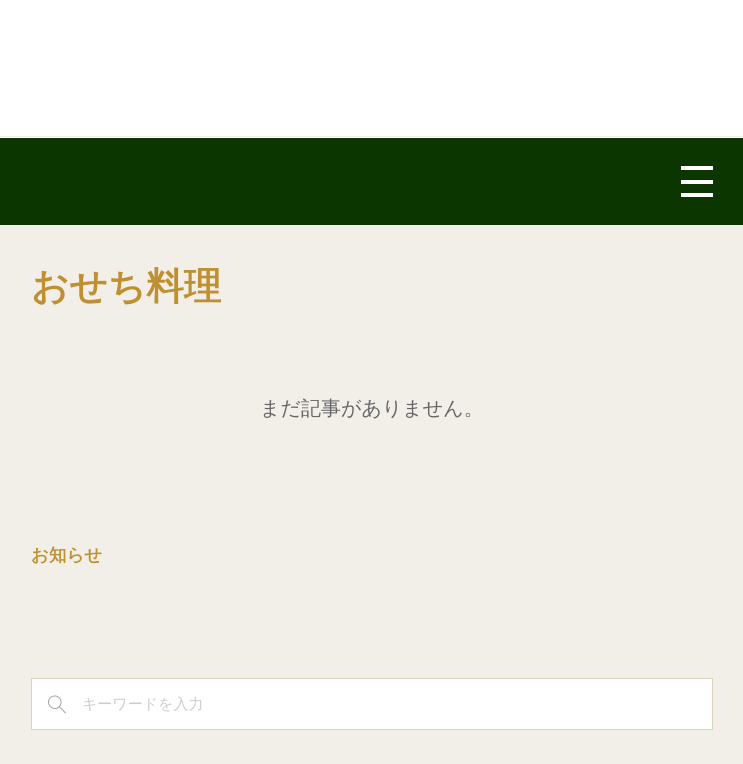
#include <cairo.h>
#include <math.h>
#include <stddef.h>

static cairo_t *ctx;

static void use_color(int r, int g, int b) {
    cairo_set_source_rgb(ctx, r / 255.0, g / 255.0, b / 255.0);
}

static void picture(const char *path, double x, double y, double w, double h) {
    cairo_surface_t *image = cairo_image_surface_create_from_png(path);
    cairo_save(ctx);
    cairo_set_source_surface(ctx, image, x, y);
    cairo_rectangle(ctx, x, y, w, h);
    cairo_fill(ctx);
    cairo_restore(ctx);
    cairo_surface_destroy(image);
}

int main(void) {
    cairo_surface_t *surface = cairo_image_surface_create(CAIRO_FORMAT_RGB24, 743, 764);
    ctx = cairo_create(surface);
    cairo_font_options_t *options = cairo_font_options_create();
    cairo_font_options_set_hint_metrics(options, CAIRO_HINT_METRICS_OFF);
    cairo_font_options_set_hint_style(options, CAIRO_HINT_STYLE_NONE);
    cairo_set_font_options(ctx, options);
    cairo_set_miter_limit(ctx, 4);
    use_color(242, 239, 233);
    cairo_paint(ctx);
    use_color(255, 255, 255);
    cairo_rectangle(ctx, 0, 0, 743, 138);
    cairo_fill(ctx);
    use_color(238, 238, 238);
    cairo_rectangle(ctx, 0, 136, 743, 1);
    cairo_fill(ctx);
    use_color(12, 54, 0);
    cairo_rectangle(ctx, 0, 138, 743, 87);
    cairo_fill(ctx);
    use_color(255, 255, 255);
    cairo_rectangle(ctx, 681, 166, 32, 4);
    cairo_fill(ctx);
    cairo_rectangle(ctx, 681, 180, 32, 4);
    cairo_fill(ctx);
    cairo_rectangle(ctx, 681, 193, 32, 4);
    cairo_fill(ctx);
    cairo_select_font_face(ctx, "WenQuanYi Zen Hei", CAIRO_FONT_SLANT_NORMAL, CAIRO_FONT_WEIGHT_BOLD);
    cairo_set_font_size(ctx, 37.5);
    use_color(191, 144, 50);
    cairo_move_to(ctx, 31, 299);
    cairo_show_text(ctx, "おせち料理");
    cairo_select_font_face(ctx, "WenQuanYi Zen Hei Medium", CAIRO_FONT_SLANT_NORMAL, CAIRO_FONT_WEIGHT_NORMAL);
    cairo_set_font_size(ctx, 20);
    use_color(102, 102, 102);
    cairo_move_to(ctx, 260, 415);
    cairo_show_text(ctx, "まだ記事がありません。");
    cairo_select_font_face(ctx, "WenQuanYi Zen Hei", CAIRO_FONT_SLANT_NORMAL, CAIRO_FONT_WEIGHT_BOLD);
    cairo_set_font_size(ctx, 17.5);
    use_color(191, 144, 50);
    cairo_move_to(ctx, 31, 561);
    cairo_show_text(ctx, "お知らせ");
    use_color(255, 255, 255);
    cairo_rectangle(ctx, 31.5, 678.5, 681, 51);
    cairo_fill_preserve(ctx);
    use_color(222, 211, 186);
    cairo_set_line_width(ctx, 1);
    cairo_stroke(ctx);
    picture("img1.png", 48, 695, 18, 19);
    cairo_select_font_face(ctx, "WenQuanYi Zen Hei Medium", CAIRO_FONT_SLANT_NORMAL, CAIRO_FONT_WEIGHT_NORMAL);
    cairo_set_font_size(ctx, 15);
    use_color(204, 204, 204);
    cairo_move_to(ctx, 82, 709);
    cairo_show_text(ctx, "キーワードを入力");
    cairo_surface_write_to_png(surface, "result.png");
    cairo_font_options_destroy(options);
    cairo_destroy(ctx);
    cairo_surface_destroy(surface);
    return 0;
}
